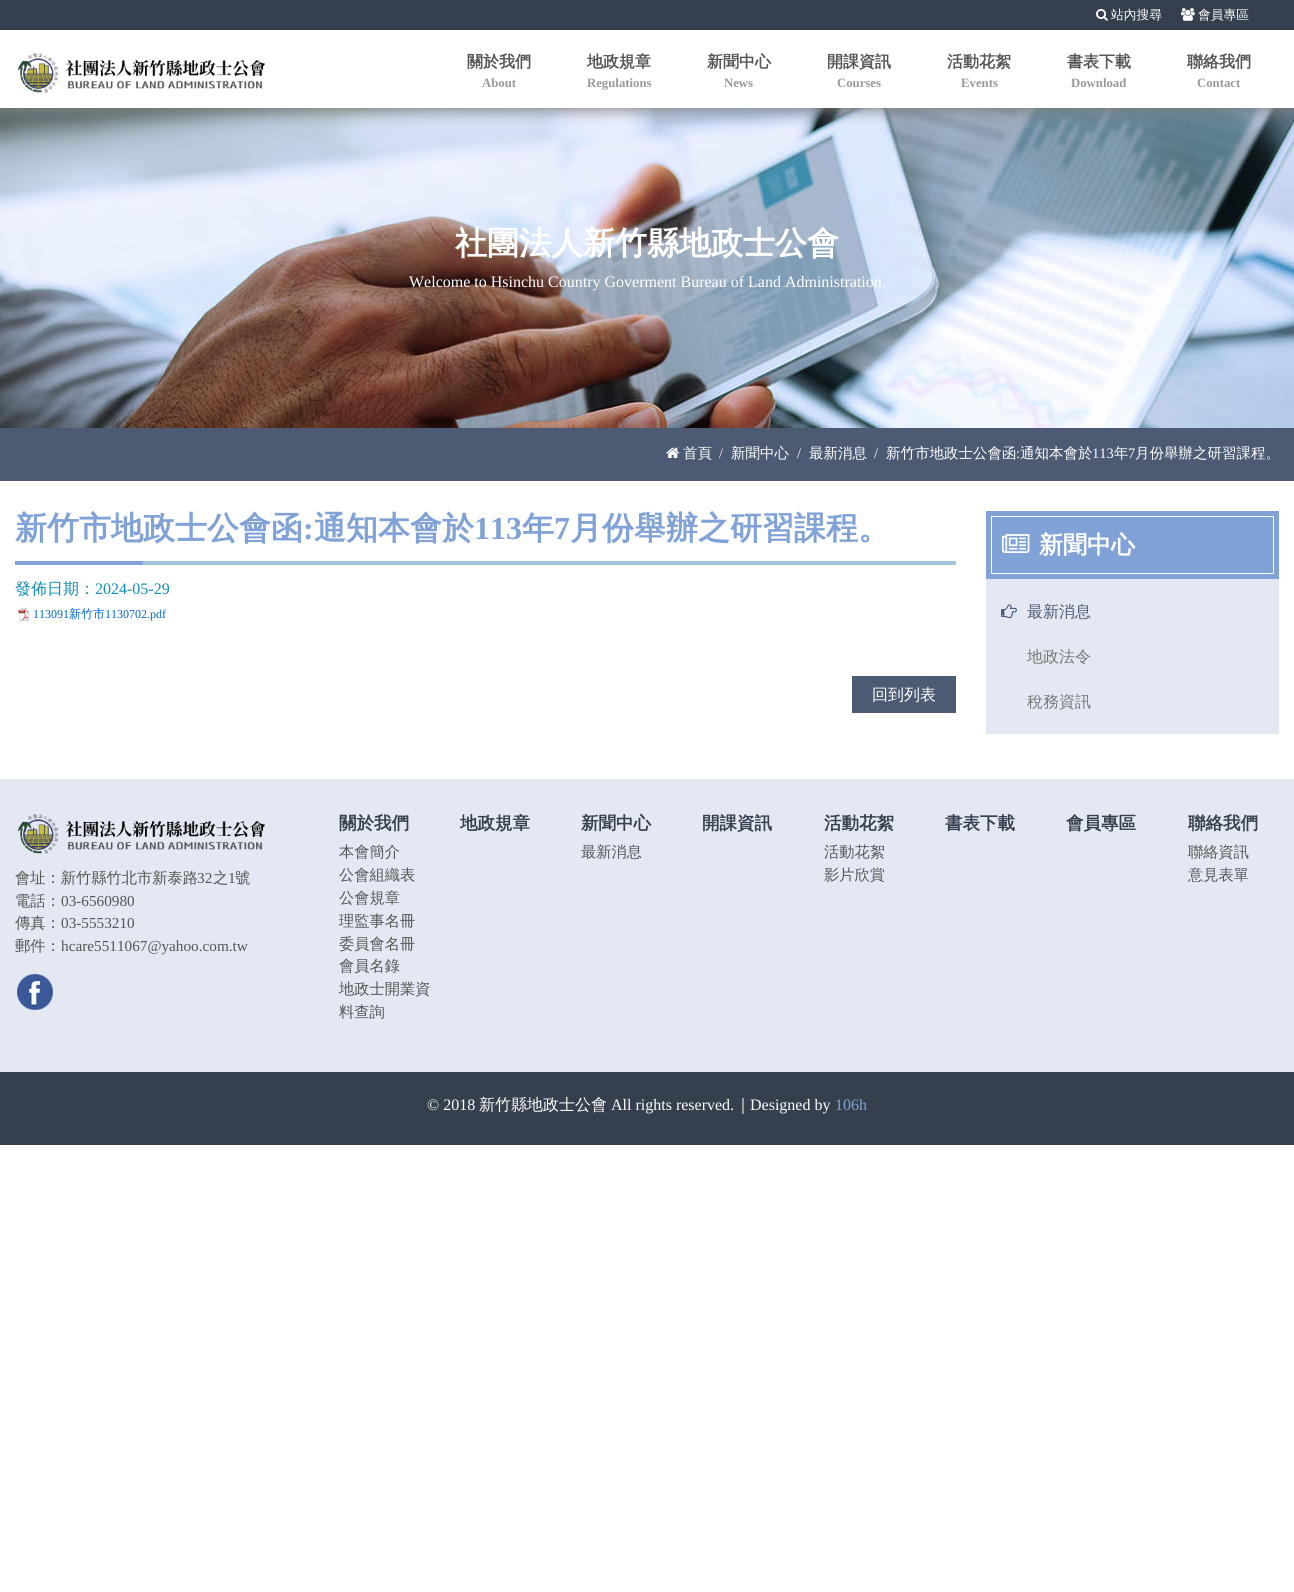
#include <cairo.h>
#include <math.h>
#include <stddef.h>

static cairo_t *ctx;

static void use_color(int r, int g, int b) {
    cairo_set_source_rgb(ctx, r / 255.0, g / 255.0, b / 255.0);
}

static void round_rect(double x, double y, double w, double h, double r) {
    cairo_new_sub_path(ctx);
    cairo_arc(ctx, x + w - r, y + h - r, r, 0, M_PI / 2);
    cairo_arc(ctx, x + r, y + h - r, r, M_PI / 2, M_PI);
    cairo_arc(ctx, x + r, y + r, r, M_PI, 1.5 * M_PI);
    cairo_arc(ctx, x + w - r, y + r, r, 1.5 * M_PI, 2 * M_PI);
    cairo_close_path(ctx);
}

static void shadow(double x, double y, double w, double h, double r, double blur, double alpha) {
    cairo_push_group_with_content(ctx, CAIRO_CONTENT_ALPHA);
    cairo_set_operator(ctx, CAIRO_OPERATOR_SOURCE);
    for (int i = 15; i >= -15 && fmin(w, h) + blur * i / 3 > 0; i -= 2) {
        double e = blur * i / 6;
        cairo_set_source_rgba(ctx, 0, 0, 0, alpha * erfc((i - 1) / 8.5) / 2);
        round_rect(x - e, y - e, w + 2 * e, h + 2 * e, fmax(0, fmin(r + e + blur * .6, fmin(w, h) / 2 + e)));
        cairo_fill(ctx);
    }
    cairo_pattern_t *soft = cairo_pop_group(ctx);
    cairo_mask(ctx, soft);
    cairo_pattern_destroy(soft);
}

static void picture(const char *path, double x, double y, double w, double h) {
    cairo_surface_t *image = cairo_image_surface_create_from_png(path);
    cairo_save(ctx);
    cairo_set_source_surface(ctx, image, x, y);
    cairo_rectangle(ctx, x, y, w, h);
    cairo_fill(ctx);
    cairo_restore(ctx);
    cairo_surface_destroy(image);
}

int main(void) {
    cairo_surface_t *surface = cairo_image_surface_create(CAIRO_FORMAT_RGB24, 1294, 1592);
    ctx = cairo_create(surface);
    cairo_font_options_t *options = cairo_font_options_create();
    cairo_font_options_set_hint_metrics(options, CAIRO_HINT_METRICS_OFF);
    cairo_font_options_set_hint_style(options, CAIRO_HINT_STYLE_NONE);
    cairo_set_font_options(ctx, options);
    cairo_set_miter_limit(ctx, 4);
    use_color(255, 255, 255);
    cairo_paint(ctx);
    picture("img4.png", 0, 108, 1294, 320);
    cairo_save(ctx);
    cairo_rectangle(ctx, 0, 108, 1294, 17);
    cairo_clip(ctx);
    use_color(128, 128, 128);
    shadow(2, 6, 1290, 104, 0, 7.5, 1);
    cairo_restore(ctx);
    use_color(54, 63, 77);
    cairo_rectangle(ctx, 0, 0, 1294, 30);
    cairo_fill(ctx);
    picture("img1.png", 1096, 9, 12, 12);
    cairo_select_font_face(ctx, "WenQuanYi Zen Hei Medium", CAIRO_FONT_SLANT_NORMAL, CAIRO_FONT_WEIGHT_NORMAL);
    cairo_set_font_size(ctx, 12.75);
    use_color(255, 255, 255);
    cairo_move_to(ctx, 1111, 19);
    cairo_show_text(ctx, "站內搜尋");
    picture("img2.png", 1181, 8, 14, 13);
    cairo_move_to(ctx, 1198, 19);
    cairo_show_text(ctx, "會員專區");
    picture("img3.png", 17, 53, 248, 40);
    cairo_select_font_face(ctx, "WenQuanYi Zen Hei", CAIRO_FONT_SLANT_NORMAL, CAIRO_FONT_WEIGHT_BOLD);
    cairo_set_font_size(ctx, 16);
    use_color(85, 85, 85);
    cairo_move_to(ctx, 467, 67);
    cairo_show_text(ctx, "關於我們");
    cairo_select_font_face(ctx, "Liberation Serif", CAIRO_FONT_SLANT_NORMAL, CAIRO_FONT_WEIGHT_BOLD);
    cairo_set_font_size(ctx, 12.75);
    use_color(153, 153, 153);
    cairo_move_to(ctx, 482, 87);
    cairo_show_text(ctx, "About");
    cairo_select_font_face(ctx, "WenQuanYi Zen Hei", CAIRO_FONT_SLANT_NORMAL, CAIRO_FONT_WEIGHT_BOLD);
    cairo_set_font_size(ctx, 16);
    use_color(85, 85, 85);
    cairo_move_to(ctx, 587, 67);
    cairo_show_text(ctx, "地政規章");
    cairo_select_font_face(ctx, "Liberation Serif", CAIRO_FONT_SLANT_NORMAL, CAIRO_FONT_WEIGHT_BOLD);
    cairo_set_font_size(ctx, 12.75);
    use_color(153, 153, 153);
    cairo_move_to(ctx, 587, 87);
    cairo_show_text(ctx, "Regulations");
    cairo_select_font_face(ctx, "WenQuanYi Zen Hei", CAIRO_FONT_SLANT_NORMAL, CAIRO_FONT_WEIGHT_BOLD);
    cairo_set_font_size(ctx, 16);
    use_color(85, 85, 85);
    cairo_move_to(ctx, 707, 67);
    cairo_show_text(ctx, "新聞中心");
    cairo_select_font_face(ctx, "Liberation Serif", CAIRO_FONT_SLANT_NORMAL, CAIRO_FONT_WEIGHT_BOLD);
    cairo_set_font_size(ctx, 12.75);
    use_color(153, 153, 153);
    cairo_move_to(ctx, 724, 87);
    cairo_show_text(ctx, "News");
    cairo_select_font_face(ctx, "WenQuanYi Zen Hei", CAIRO_FONT_SLANT_NORMAL, CAIRO_FONT_WEIGHT_BOLD);
    cairo_set_font_size(ctx, 16);
    use_color(85, 85, 85);
    cairo_move_to(ctx, 827, 67);
    cairo_show_text(ctx, "開課資訊");
    cairo_select_font_face(ctx, "Liberation Serif", CAIRO_FONT_SLANT_NORMAL, CAIRO_FONT_WEIGHT_BOLD);
    cairo_set_font_size(ctx, 12.75);
    use_color(153, 153, 153);
    cairo_move_to(ctx, 837, 87);
    cairo_show_text(ctx, "Courses");
    cairo_select_font_face(ctx, "WenQuanYi Zen Hei", CAIRO_FONT_SLANT_NORMAL, CAIRO_FONT_WEIGHT_BOLD);
    cairo_set_font_size(ctx, 16);
    use_color(85, 85, 85);
    cairo_move_to(ctx, 947, 67);
    cairo_show_text(ctx, "活動花絮");
    cairo_select_font_face(ctx, "Liberation Serif", CAIRO_FONT_SLANT_NORMAL, CAIRO_FONT_WEIGHT_BOLD);
    cairo_set_font_size(ctx, 12.75);
    use_color(153, 153, 153);
    cairo_move_to(ctx, 961, 87);
    cairo_show_text(ctx, "Events");
    cairo_select_font_face(ctx, "WenQuanYi Zen Hei", CAIRO_FONT_SLANT_NORMAL, CAIRO_FONT_WEIGHT_BOLD);
    cairo_set_font_size(ctx, 16);
    use_color(85, 85, 85);
    cairo_move_to(ctx, 1067, 67);
    cairo_show_text(ctx, "書表下載");
    cairo_select_font_face(ctx, "Liberation Serif", CAIRO_FONT_SLANT_NORMAL, CAIRO_FONT_WEIGHT_BOLD);
    cairo_set_font_size(ctx, 12.75);
    use_color(153, 153, 153);
    cairo_move_to(ctx, 1071, 87);
    cairo_show_text(ctx, "Download");
    cairo_select_font_face(ctx, "WenQuanYi Zen Hei", CAIRO_FONT_SLANT_NORMAL, CAIRO_FONT_WEIGHT_BOLD);
    cairo_set_font_size(ctx, 16);
    use_color(85, 85, 85);
    cairo_move_to(ctx, 1187, 67);
    cairo_show_text(ctx, "聯絡我們");
    cairo_select_font_face(ctx, "Liberation Serif", CAIRO_FONT_SLANT_NORMAL, CAIRO_FONT_WEIGHT_BOLD);
    cairo_set_font_size(ctx, 12.75);
    use_color(153, 153, 153);
    cairo_move_to(ctx, 1197, 87);
    cairo_show_text(ctx, "Contact");
    cairo_select_font_face(ctx, "WenQuanYi Zen Hei", CAIRO_FONT_SLANT_NORMAL, CAIRO_FONT_WEIGHT_BOLD);
    cairo_set_font_size(ctx, 32);
    use_color(255, 255, 255);
    cairo_move_to(ctx, 455, 254);
    cairo_show_text(ctx, "社團法人新竹縣地政士公會");
    cairo_select_font_face(ctx, "Liberation Serif", CAIRO_FONT_SLANT_NORMAL, CAIRO_FONT_WEIGHT_NORMAL);
    cairo_set_font_size(ctx, 16);
    cairo_move_to(ctx, 409, 287);
    cairo_show_text(ctx, "Welcome to Hsinchu Country Goverment Bureau of Land Administration.");
    use_color(76, 90, 116);
    cairo_rectangle(ctx, 0, 428, 1294, 53);
    cairo_fill(ctx);
    picture("img5.png", 666, 447, 14, 11);
    cairo_select_font_face(ctx, "WenQuanYi Zen Hei Medium", CAIRO_FONT_SLANT_NORMAL, CAIRO_FONT_WEIGHT_NORMAL);
    cairo_set_font_size(ctx, 14.5);
    use_color(255, 255, 255);
    cairo_move_to(ctx, 683, 458);
    cairo_show_text(ctx, "首頁");
    cairo_select_font_face(ctx, "Liberation Serif", CAIRO_FONT_SLANT_NORMAL, CAIRO_FONT_WEIGHT_NORMAL);
    cairo_move_to(ctx, 719, 458);
    cairo_show_text(ctx, "/");
    cairo_select_font_face(ctx, "WenQuanYi Zen Hei Medium", CAIRO_FONT_SLANT_NORMAL, CAIRO_FONT_WEIGHT_NORMAL);
    cairo_move_to(ctx, 731, 458);
    cairo_show_text(ctx, "新聞中心");
    cairo_select_font_face(ctx, "Liberation Serif", CAIRO_FONT_SLANT_NORMAL, CAIRO_FONT_WEIGHT_NORMAL);
    cairo_move_to(ctx, 797, 458);
    cairo_show_text(ctx, "/");
    cairo_select_font_face(ctx, "WenQuanYi Zen Hei Medium", CAIRO_FONT_SLANT_NORMAL, CAIRO_FONT_WEIGHT_NORMAL);
    cairo_move_to(ctx, 809, 458);
    cairo_show_text(ctx, "最新消息");
    cairo_select_font_face(ctx, "Liberation Serif", CAIRO_FONT_SLANT_NORMAL, CAIRO_FONT_WEIGHT_NORMAL);
    cairo_move_to(ctx, 874, 458);
    cairo_show_text(ctx, "/");
    cairo_select_font_face(ctx, "WenQuanYi Zen Hei Medium", CAIRO_FONT_SLANT_NORMAL, CAIRO_FONT_WEIGHT_NORMAL);
    cairo_move_to(ctx, 886, 458);
    cairo_show_text(ctx, "新竹市地政士公會函");
    cairo_select_font_face(ctx, "Liberation Serif", CAIRO_FONT_SLANT_NORMAL, CAIRO_FONT_WEIGHT_NORMAL);
    cairo_move_to(ctx, 1016, 458);
    cairo_show_text(ctx, ":");
    cairo_select_font_face(ctx, "WenQuanYi Zen Hei Medium", CAIRO_FONT_SLANT_NORMAL, CAIRO_FONT_WEIGHT_NORMAL);
    cairo_move_to(ctx, 1020, 458);
    cairo_show_text(ctx, "通知本會於");
    cairo_select_font_face(ctx, "Liberation Serif", CAIRO_FONT_SLANT_NORMAL, CAIRO_FONT_WEIGHT_NORMAL);
    cairo_move_to(ctx, 1092, 458);
    cairo_show_text(ctx, "113");
    cairo_select_font_face(ctx, "WenQuanYi Zen Hei Medium", CAIRO_FONT_SLANT_NORMAL, CAIRO_FONT_WEIGHT_NORMAL);
    cairo_move_to(ctx, 1114, 458);
    cairo_show_text(ctx, "年");
    cairo_select_font_face(ctx, "Liberation Serif", CAIRO_FONT_SLANT_NORMAL, CAIRO_FONT_WEIGHT_NORMAL);
    cairo_move_to(ctx, 1128, 458);
    cairo_show_text(ctx, "7");
    cairo_select_font_face(ctx, "WenQuanYi Zen Hei Medium", CAIRO_FONT_SLANT_NORMAL, CAIRO_FONT_WEIGHT_NORMAL);
    cairo_move_to(ctx, 1135, 458);
    cairo_show_text(ctx, "月份舉辦之研習課程。");
    cairo_select_font_face(ctx, "WenQuanYi Zen Hei", CAIRO_FONT_SLANT_NORMAL, CAIRO_FONT_WEIGHT_BOLD);
    cairo_set_font_size(ctx, 32);
    use_color(128, 162, 215);
    cairo_move_to(ctx, 15, 539);
    cairo_show_text(ctx, "新竹市地政士公會函");
    cairo_select_font_face(ctx, "Liberation Serif", CAIRO_FONT_SLANT_NORMAL, CAIRO_FONT_WEIGHT_BOLD);
    cairo_move_to(ctx, 303, 539);
    cairo_show_text(ctx, ":");
    cairo_select_font_face(ctx, "WenQuanYi Zen Hei", CAIRO_FONT_SLANT_NORMAL, CAIRO_FONT_WEIGHT_BOLD);
    cairo_move_to(ctx, 314, 539);
    cairo_show_text(ctx, "通知本會於");
    cairo_select_font_face(ctx, "Liberation Serif", CAIRO_FONT_SLANT_NORMAL, CAIRO_FONT_WEIGHT_BOLD);
    cairo_move_to(ctx, 474, 539);
    cairo_show_text(ctx, "113");
    cairo_select_font_face(ctx, "WenQuanYi Zen Hei", CAIRO_FONT_SLANT_NORMAL, CAIRO_FONT_WEIGHT_BOLD);
    cairo_move_to(ctx, 522, 539);
    cairo_show_text(ctx, "年");
    cairo_select_font_face(ctx, "Liberation Serif", CAIRO_FONT_SLANT_NORMAL, CAIRO_FONT_WEIGHT_BOLD);
    cairo_move_to(ctx, 554, 539);
    cairo_show_text(ctx, "7");
    cairo_select_font_face(ctx, "WenQuanYi Zen Hei", CAIRO_FONT_SLANT_NORMAL, CAIRO_FONT_WEIGHT_BOLD);
    cairo_move_to(ctx, 570, 539);
    cairo_show_text(ctx, "月份舉辦之研習課程。");
    use_color(161, 198, 219);
    cairo_rectangle(ctx, 143, 561, 813, 4);
    cairo_fill(ctx);
    use_color(128, 162, 215);
    cairo_rectangle(ctx, 15, 561, 128, 4);
    cairo_fill(ctx);
    cairo_select_font_face(ctx, "WenQuanYi Zen Hei Medium", CAIRO_FONT_SLANT_NORMAL, CAIRO_FONT_WEIGHT_NORMAL);
    cairo_set_font_size(ctx, 16);
    use_color(18, 141, 183);
    cairo_move_to(ctx, 15, 594);
    cairo_show_text(ctx, "發佈日期：");
    cairo_select_font_face(ctx, "Liberation Serif", CAIRO_FONT_SLANT_NORMAL, CAIRO_FONT_WEIGHT_NORMAL);
    cairo_move_to(ctx, 95, 594);
    cairo_show_text(ctx, "2024-05-29");
    picture("img6.png", 18, 607, 12, 15);
    cairo_set_font_size(ctx, 12);
    use_color(0, 102, 204);
    cairo_move_to(ctx, 33, 618);
    cairo_show_text(ctx, "113091");
    cairo_select_font_face(ctx, "WenQuanYi Zen Hei Medium", CAIRO_FONT_SLANT_NORMAL, CAIRO_FONT_WEIGHT_NORMAL);
    cairo_move_to(ctx, 69, 618);
    cairo_show_text(ctx, "新竹市");
    cairo_select_font_face(ctx, "Liberation Serif", CAIRO_FONT_SLANT_NORMAL, CAIRO_FONT_WEIGHT_NORMAL);
    cairo_move_to(ctx, 105, 618);
    cairo_show_text(ctx, "1130702.pdf");
    use_color(76, 90, 116);
    cairo_rectangle(ctx, 852, 676, 104, 37);
    cairo_fill(ctx);
    cairo_select_font_face(ctx, "WenQuanYi Zen Hei Medium", CAIRO_FONT_SLANT_NORMAL, CAIRO_FONT_WEIGHT_NORMAL);
    cairo_set_font_size(ctx, 16);
    use_color(255, 255, 255);
    cairo_move_to(ctx, 872, 700);
    cairo_show_text(ctx, "回到列表");
    use_color(128, 162, 215);
    cairo_rectangle(ctx, 986, 511, 293, 68);
    cairo_fill(ctx);
    cairo_rectangle(ctx, 991.5, 516.5, 282, 57);
    use_color(255, 255, 255);
    cairo_set_line_width(ctx, 1);
    cairo_stroke(ctx);
    picture("img7.png", 1002, 534, 28, 19);
    cairo_select_font_face(ctx, "WenQuanYi Zen Hei", CAIRO_FONT_SLANT_NORMAL, CAIRO_FONT_WEIGHT_BOLD);
    cairo_set_font_size(ctx, 24);
    cairo_move_to(ctx, 1039, 553);
    cairo_show_text(ctx, "新聞中心");
    use_color(227, 232, 243);
    cairo_rectangle(ctx, 986, 579, 293, 155);
    cairo_fill(ctx);
    picture("img8.png", 1001, 604, 16, 15);
    cairo_select_font_face(ctx, "WenQuanYi Zen Hei Medium", CAIRO_FONT_SLANT_NORMAL, CAIRO_FONT_WEIGHT_NORMAL);
    cairo_set_font_size(ctx, 16);
    use_color(76, 90, 116);
    cairo_move_to(ctx, 1027, 617);
    cairo_show_text(ctx, "最新消息");
    use_color(119, 119, 119);
    cairo_move_to(ctx, 1027, 662);
    cairo_show_text(ctx, "地政法令");
    cairo_move_to(ctx, 1027, 707);
    cairo_show_text(ctx, "稅務資訊");
    use_color(227, 232, 243);
    cairo_rectangle(ctx, 0, 779, 1294, 293);
    cairo_fill(ctx);
    picture("img9.png", 17, 814, 248, 40);
    cairo_set_font_size(ctx, 15.25);
    use_color(85, 85, 85);
    cairo_move_to(ctx, 15, 883);
    cairo_show_text(ctx, "會址：新竹縣竹北市新泰路");
    cairo_select_font_face(ctx, "Liberation Serif", CAIRO_FONT_SLANT_NORMAL, CAIRO_FONT_WEIGHT_NORMAL);
    cairo_move_to(ctx, 197, 883);
    cairo_show_text(ctx, "32");
    cairo_select_font_face(ctx, "WenQuanYi Zen Hei Medium", CAIRO_FONT_SLANT_NORMAL, CAIRO_FONT_WEIGHT_NORMAL);
    cairo_move_to(ctx, 213, 883);
    cairo_show_text(ctx, "之");
    cairo_select_font_face(ctx, "Liberation Serif", CAIRO_FONT_SLANT_NORMAL, CAIRO_FONT_WEIGHT_NORMAL);
    cairo_move_to(ctx, 228, 883);
    cairo_show_text(ctx, "1");
    cairo_select_font_face(ctx, "WenQuanYi Zen Hei Medium", CAIRO_FONT_SLANT_NORMAL, CAIRO_FONT_WEIGHT_NORMAL);
    cairo_move_to(ctx, 235, 883);
    cairo_show_text(ctx, "號");
    cairo_move_to(ctx, 15, 906);
    cairo_show_text(ctx, "電話：");
    cairo_select_font_face(ctx, "Liberation Serif", CAIRO_FONT_SLANT_NORMAL, CAIRO_FONT_WEIGHT_NORMAL);
    cairo_move_to(ctx, 61, 906);
    cairo_show_text(ctx, "03-6560980");
    cairo_select_font_face(ctx, "WenQuanYi Zen Hei Medium", CAIRO_FONT_SLANT_NORMAL, CAIRO_FONT_WEIGHT_NORMAL);
    cairo_move_to(ctx, 15, 928);
    cairo_show_text(ctx, "傳真：");
    cairo_select_font_face(ctx, "Liberation Serif", CAIRO_FONT_SLANT_NORMAL, CAIRO_FONT_WEIGHT_NORMAL);
    cairo_move_to(ctx, 61, 928);
    cairo_show_text(ctx, "03-5553210");
    cairo_select_font_face(ctx, "WenQuanYi Zen Hei Medium", CAIRO_FONT_SLANT_NORMAL, CAIRO_FONT_WEIGHT_NORMAL);
    cairo_move_to(ctx, 15, 951);
    cairo_show_text(ctx, "郵件：");
    cairo_select_font_face(ctx, "Liberation Serif", CAIRO_FONT_SLANT_NORMAL, CAIRO_FONT_WEIGHT_NORMAL);
    cairo_move_to(ctx, 61, 951);
    cairo_show_text(ctx, "hcare5511067@yahoo.com.tw");
    picture("img10.png", 17, 974, 36, 36);
    cairo_select_font_face(ctx, "WenQuanYi Zen Hei", CAIRO_FONT_SLANT_NORMAL, CAIRO_FONT_WEIGHT_BOLD);
    cairo_set_font_size(ctx, 17.5);
    use_color(54, 63, 77);
    cairo_move_to(ctx, 339, 829);
    cairo_show_text(ctx, "關於我們");
    cairo_select_font_face(ctx, "WenQuanYi Zen Hei Medium", CAIRO_FONT_SLANT_NORMAL, CAIRO_FONT_WEIGHT_NORMAL);
    cairo_set_font_size(ctx, 15.25);
    use_color(85, 85, 85);
    cairo_move_to(ctx, 339, 857);
    cairo_show_text(ctx, "本會簡介");
    cairo_move_to(ctx, 339, 880);
    cairo_show_text(ctx, "公會組織表");
    cairo_move_to(ctx, 339, 903);
    cairo_show_text(ctx, "公會規章");
    cairo_move_to(ctx, 339, 926);
    cairo_show_text(ctx, "理監事名冊");
    cairo_move_to(ctx, 339, 949);
    cairo_show_text(ctx, "委員會名冊");
    cairo_move_to(ctx, 339, 971);
    cairo_show_text(ctx, "會員名錄");
    cairo_move_to(ctx, 339, 994);
    cairo_show_text(ctx, "地政士開業資");
    cairo_move_to(ctx, 339, 1017);
    cairo_show_text(ctx, "料查詢");
    cairo_select_font_face(ctx, "WenQuanYi Zen Hei", CAIRO_FONT_SLANT_NORMAL, CAIRO_FONT_WEIGHT_BOLD);
    cairo_set_font_size(ctx, 17.5);
    use_color(54, 63, 77);
    cairo_move_to(ctx, 460, 829);
    cairo_show_text(ctx, "地政規章");
    cairo_move_to(ctx, 581, 829);
    cairo_show_text(ctx, "新聞中心");
    cairo_select_font_face(ctx, "WenQuanYi Zen Hei Medium", CAIRO_FONT_SLANT_NORMAL, CAIRO_FONT_WEIGHT_NORMAL);
    cairo_set_font_size(ctx, 15.25);
    use_color(85, 85, 85);
    cairo_move_to(ctx, 581, 857);
    cairo_show_text(ctx, "最新消息");
    cairo_select_font_face(ctx, "WenQuanYi Zen Hei", CAIRO_FONT_SLANT_NORMAL, CAIRO_FONT_WEIGHT_BOLD);
    cairo_set_font_size(ctx, 17.5);
    use_color(54, 63, 77);
    cairo_move_to(ctx, 702, 829);
    cairo_show_text(ctx, "開課資訊");
    cairo_move_to(ctx, 824, 829);
    cairo_show_text(ctx, "活動花絮");
    cairo_select_font_face(ctx, "WenQuanYi Zen Hei Medium", CAIRO_FONT_SLANT_NORMAL, CAIRO_FONT_WEIGHT_NORMAL);
    cairo_set_font_size(ctx, 15.25);
    use_color(85, 85, 85);
    cairo_move_to(ctx, 824, 857);
    cairo_show_text(ctx, "活動花絮");
    cairo_move_to(ctx, 824, 880);
    cairo_show_text(ctx, "影片欣賞");
    cairo_select_font_face(ctx, "WenQuanYi Zen Hei", CAIRO_FONT_SLANT_NORMAL, CAIRO_FONT_WEIGHT_BOLD);
    cairo_set_font_size(ctx, 17.5);
    use_color(54, 63, 77);
    cairo_move_to(ctx, 945, 829);
    cairo_show_text(ctx, "書表下載");
    cairo_move_to(ctx, 1066, 829);
    cairo_show_text(ctx, "會員專區");
    cairo_move_to(ctx, 1188, 829);
    cairo_show_text(ctx, "聯絡我們");
    cairo_select_font_face(ctx, "WenQuanYi Zen Hei Medium", CAIRO_FONT_SLANT_NORMAL, CAIRO_FONT_WEIGHT_NORMAL);
    cairo_set_font_size(ctx, 15.25);
    use_color(85, 85, 85);
    cairo_move_to(ctx, 1188, 857);
    cairo_show_text(ctx, "聯絡資訊");
    cairo_move_to(ctx, 1188, 880);
    cairo_show_text(ctx, "意見表單");
    use_color(54, 63, 77);
    cairo_rectangle(ctx, 0, 1072, 1294, 73);
    cairo_fill(ctx);
    cairo_select_font_face(ctx, "Liberation Serif", CAIRO_FONT_SLANT_NORMAL, CAIRO_FONT_WEIGHT_NORMAL);
    cairo_set_font_size(ctx, 16);
    use_color(255, 255, 255);
    cairo_move_to(ctx, 427, 1110);
    cairo_show_text(ctx, "© 2018");
    cairo_select_font_face(ctx, "WenQuanYi Zen Hei Medium", CAIRO_FONT_SLANT_NORMAL, CAIRO_FONT_WEIGHT_NORMAL);
    cairo_move_to(ctx, 479, 1110);
    cairo_show_text(ctx, "新竹縣地政士公會");
    cairo_select_font_face(ctx, "Liberation Serif", CAIRO_FONT_SLANT_NORMAL, CAIRO_FONT_WEIGHT_NORMAL);
    cairo_move_to(ctx, 611, 1110);
    cairo_show_text(ctx, "All rights reserved.");
    cairo_select_font_face(ctx, "WenQuanYi Zen Hei Medium", CAIRO_FONT_SLANT_NORMAL, CAIRO_FONT_WEIGHT_NORMAL);
    cairo_move_to(ctx, 735, 1110);
    cairo_show_text(ctx, "｜");
    cairo_select_font_face(ctx, "Liberation Serif", CAIRO_FONT_SLANT_NORMAL, CAIRO_FONT_WEIGHT_NORMAL);
    cairo_move_to(ctx, 750, 1110);
    cairo_show_text(ctx, "Designed by");
    use_color(128, 162, 215);
    cairo_move_to(ctx, 835, 1110);
    cairo_show_text(ctx, "106h");
    cairo_surface_write_to_png(surface, "result.png");
    cairo_font_options_destroy(options);
    cairo_destroy(ctx);
    cairo_surface_destroy(surface);
    return 0;
}
